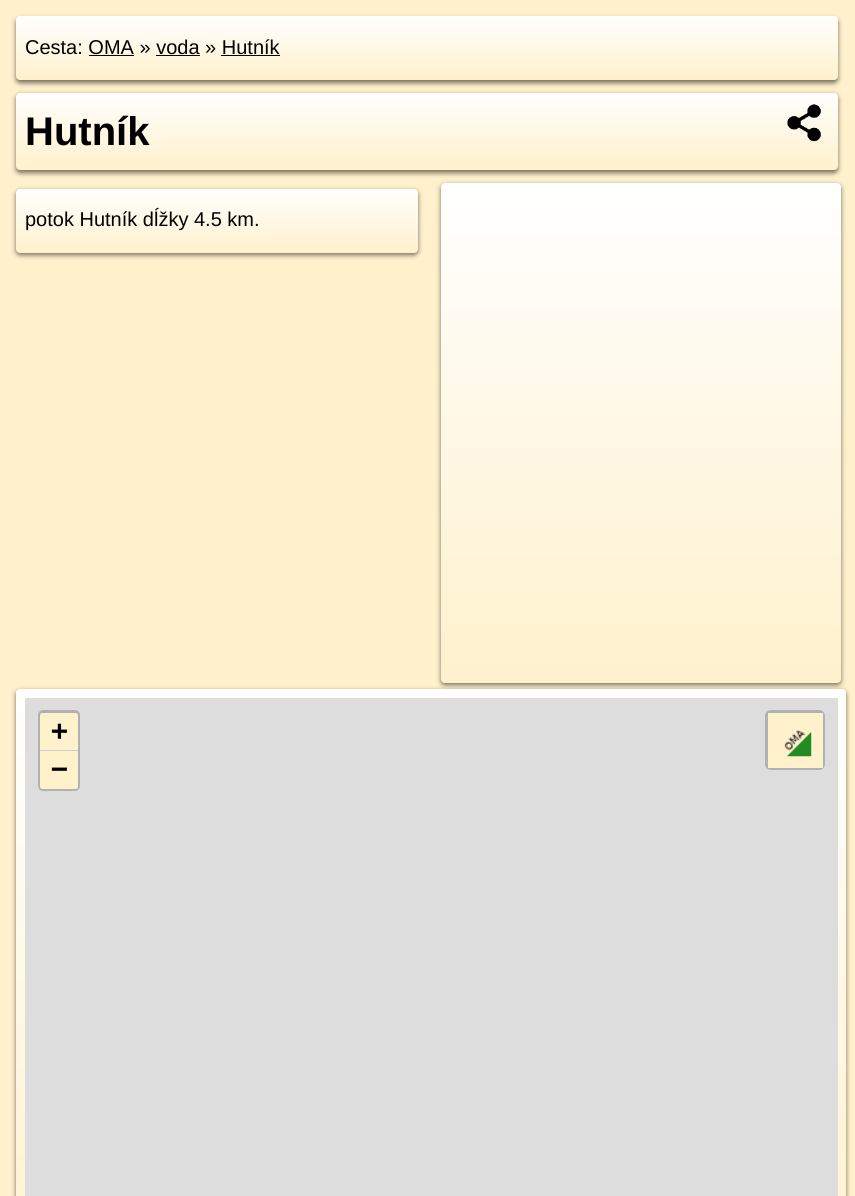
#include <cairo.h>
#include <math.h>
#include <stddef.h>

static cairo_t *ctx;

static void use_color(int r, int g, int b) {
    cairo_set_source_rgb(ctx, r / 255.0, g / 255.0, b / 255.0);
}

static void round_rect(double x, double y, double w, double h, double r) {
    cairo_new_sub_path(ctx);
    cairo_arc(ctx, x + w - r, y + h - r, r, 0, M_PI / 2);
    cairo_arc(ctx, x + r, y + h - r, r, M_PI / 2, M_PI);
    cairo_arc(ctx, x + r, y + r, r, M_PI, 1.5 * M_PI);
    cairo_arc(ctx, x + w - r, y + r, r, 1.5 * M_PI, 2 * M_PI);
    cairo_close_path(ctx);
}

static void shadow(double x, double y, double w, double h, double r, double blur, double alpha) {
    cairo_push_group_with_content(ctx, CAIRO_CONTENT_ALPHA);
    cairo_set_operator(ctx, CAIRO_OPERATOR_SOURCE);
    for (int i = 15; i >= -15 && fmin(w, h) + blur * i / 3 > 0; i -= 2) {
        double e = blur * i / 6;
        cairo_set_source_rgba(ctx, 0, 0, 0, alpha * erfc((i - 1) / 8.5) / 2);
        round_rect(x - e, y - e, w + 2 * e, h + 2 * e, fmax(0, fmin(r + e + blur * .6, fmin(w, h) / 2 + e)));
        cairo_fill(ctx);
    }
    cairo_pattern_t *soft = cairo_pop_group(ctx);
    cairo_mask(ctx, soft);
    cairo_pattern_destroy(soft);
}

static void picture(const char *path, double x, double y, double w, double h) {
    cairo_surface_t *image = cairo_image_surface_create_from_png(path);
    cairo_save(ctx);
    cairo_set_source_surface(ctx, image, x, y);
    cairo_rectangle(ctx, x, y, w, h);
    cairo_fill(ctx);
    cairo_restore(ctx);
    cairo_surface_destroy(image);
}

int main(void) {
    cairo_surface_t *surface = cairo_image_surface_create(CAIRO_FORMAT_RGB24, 855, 1196);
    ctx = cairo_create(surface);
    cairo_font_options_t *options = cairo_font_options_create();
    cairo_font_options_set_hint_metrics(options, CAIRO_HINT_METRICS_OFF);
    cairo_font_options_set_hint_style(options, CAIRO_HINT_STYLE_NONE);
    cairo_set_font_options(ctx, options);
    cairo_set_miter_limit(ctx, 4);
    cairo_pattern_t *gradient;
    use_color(255, 241, 204);
    cairo_paint(ctx);
    use_color(0, 0, 0);
    shadow(16, 19, 822, 64, 4, 2.5, 0.55);
    gradient = cairo_pattern_create_linear(427, 16, 427, 80);
    cairo_pattern_add_color_stop_rgba(gradient, 0, 1, 1, 1, 1);
    cairo_pattern_add_color_stop_rgba(gradient, 1, 1, 0.945, 0.8, 1);
    cairo_set_source(ctx, gradient);
    cairo_pattern_destroy(gradient);
    round_rect(16, 16, 822, 64, 4);
    cairo_fill(ctx);
    cairo_select_font_face(ctx, "Liberation Sans", CAIRO_FONT_SLANT_NORMAL, CAIRO_FONT_WEIGHT_NORMAL);
    cairo_set_font_size(ctx, 20);
    use_color(0, 0, 0);
    cairo_move_to(ctx, 25, 54);
    cairo_show_text(ctx, "Cesta: OMA » voda » Hutník");
    cairo_rectangle(ctx, 89, 55, 45, 1);
    cairo_fill(ctx);
    cairo_rectangle(ctx, 156, 55, 44, 1);
    cairo_fill(ctx);
    cairo_rectangle(ctx, 221, 55, 59, 1);
    cairo_fill(ctx);
    use_color(0, 0, 0);
    shadow(16, 95, 822, 78, 4, 2.5, 0.55);
    gradient = cairo_pattern_create_linear(427, 92, 427, 170);
    cairo_pattern_add_color_stop_rgba(gradient, 0, 1, 1, 1, 1);
    cairo_pattern_add_color_stop_rgba(gradient, 1, 1, 0.945, 0.8, 1);
    cairo_set_source(ctx, gradient);
    cairo_pattern_destroy(gradient);
    round_rect(16, 93, 822, 77, 4);
    cairo_fill(ctx);
    cairo_select_font_face(ctx, "Liberation Sans", CAIRO_FONT_SLANT_NORMAL, CAIRO_FONT_WEIGHT_BOLD);
    cairo_set_font_size(ctx, 40);
    use_color(0, 0, 0);
    cairo_move_to(ctx, 25, 145);
    cairo_show_text(ctx, "Hutník");
    picture("img1.png", 787, 104, 34, 38);
    use_color(0, 0, 0);
    shadow(16, 191, 402, 64, 4, 2.5, 0.55);
    gradient = cairo_pattern_create_linear(217, 189, 217, 253);
    cairo_pattern_add_color_stop_rgba(gradient, 0, 1, 1, 1, 1);
    cairo_pattern_add_color_stop_rgba(gradient, 1, 1, 0.945, 0.8, 1);
    cairo_set_source(ctx, gradient);
    cairo_pattern_destroy(gradient);
    round_rect(16, 189, 402, 64, 4);
    cairo_fill(ctx);
    cairo_select_font_face(ctx, "Liberation Sans", CAIRO_FONT_SLANT_NORMAL, CAIRO_FONT_WEIGHT_NORMAL);
    cairo_set_font_size(ctx, 20);
    use_color(0, 0, 0);
    cairo_move_to(ctx, 25, 226);
    cairo_show_text(ctx, "potok Hutník dĺžky 4.5 km.");
    use_color(0, 0, 0);
    shadow(441, 185, 400, 500, 4, 2.5, 0.55);
    gradient = cairo_pattern_create_linear(641, 182, 641, 683);
    cairo_pattern_add_color_stop_rgba(gradient, 0, 1, 1, 1, 1);
    cairo_pattern_add_color_stop_rgba(gradient, 1, 1, 0.945, 0.8, 1);
    cairo_set_source(ctx, gradient);
    cairo_pattern_destroy(gradient);
    round_rect(441, 183, 400, 500, 4);
    cairo_fill(ctx);
    use_color(0, 0, 0);
    shadow(16, 691, 830, 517, 4, 2.5, 0.55);
    gradient = cairo_pattern_create_linear(431, 689, 431, 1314);
    cairo_pattern_add_color_stop_rgba(gradient, 0, 1, 1, 1, 1);
    cairo_pattern_add_color_stop_rgba(gradient, 1, 1, 0.945, 0.8, 1);
    cairo_set_source(ctx, gradient);
    cairo_pattern_destroy(gradient);
    round_rect(16, 689, 830, 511, 4);
    cairo_fill(ctx);
    use_color(221, 221, 221);
    cairo_rectangle(ctx, 25, 698, 813, 498);
    cairo_fill(ctx);
    round_rect(39.5, 711.5, 39, 78, 3.5);
    use_color(177, 177, 177);
    cairo_set_line_width(ctx, 3);
    cairo_stroke(ctx);
    use_color(255, 241, 204);
    cairo_new_path(ctx);
    cairo_move_to(ctx, 42.5, 713);
    cairo_line_to(ctx, 75.5, 713);
    cairo_curve_to(ctx, 77, 713, 78, 714, 78, 715.5);
    cairo_line_to(ctx, 78, 751);
    cairo_line_to(ctx, 40, 751);
    cairo_line_to(ctx, 40, 715.5);
    cairo_curve_to(ctx, 40, 714, 41, 713, 42.5, 713);
    cairo_close_path(ctx);
    cairo_fill(ctx);
    use_color(204, 204, 204);
    cairo_rectangle(ctx, 40, 750, 38, 1);
    cairo_fill(ctx);
    cairo_select_font_face(ctx, "DejaVu Sans Mono", CAIRO_FONT_SLANT_NORMAL, CAIRO_FONT_WEIGHT_BOLD);
    cairo_set_font_size(ctx, 28);
    use_color(0, 0, 0);
    cairo_move_to(ctx, 51, 740);
    cairo_show_text(ctx, "+");
    use_color(255, 241, 204);
    cairo_new_path(ctx);
    cairo_move_to(ctx, 40, 751);
    cairo_line_to(ctx, 78, 751);
    cairo_line_to(ctx, 78, 786.5);
    cairo_curve_to(ctx, 78, 788, 77, 789, 75.5, 789);
    cairo_line_to(ctx, 42.5, 789);
    cairo_curve_to(ctx, 41, 789, 40, 788, 40, 786.5);
    cairo_close_path(ctx);
    cairo_fill(ctx);
    use_color(0, 0, 0);
    cairo_move_to(ctx, 51, 778);
    cairo_show_text(ctx, "−");
    round_rect(766.5, 711.5, 57, 57, 4.5);
    cairo_set_source_rgba(ctx, 0, 0, 0, 0.2);
    cairo_stroke(ctx);
    use_color(255, 241, 204);
    cairo_rectangle(ctx, 768, 713, 55, 55);
    cairo_fill(ctx);
    picture("img2.png", 784, 730, 28, 27);
    cairo_surface_write_to_png(surface, "result.png");
    cairo_font_options_destroy(options);
    cairo_destroy(ctx);
    cairo_surface_destroy(surface);
    return 0;
}
